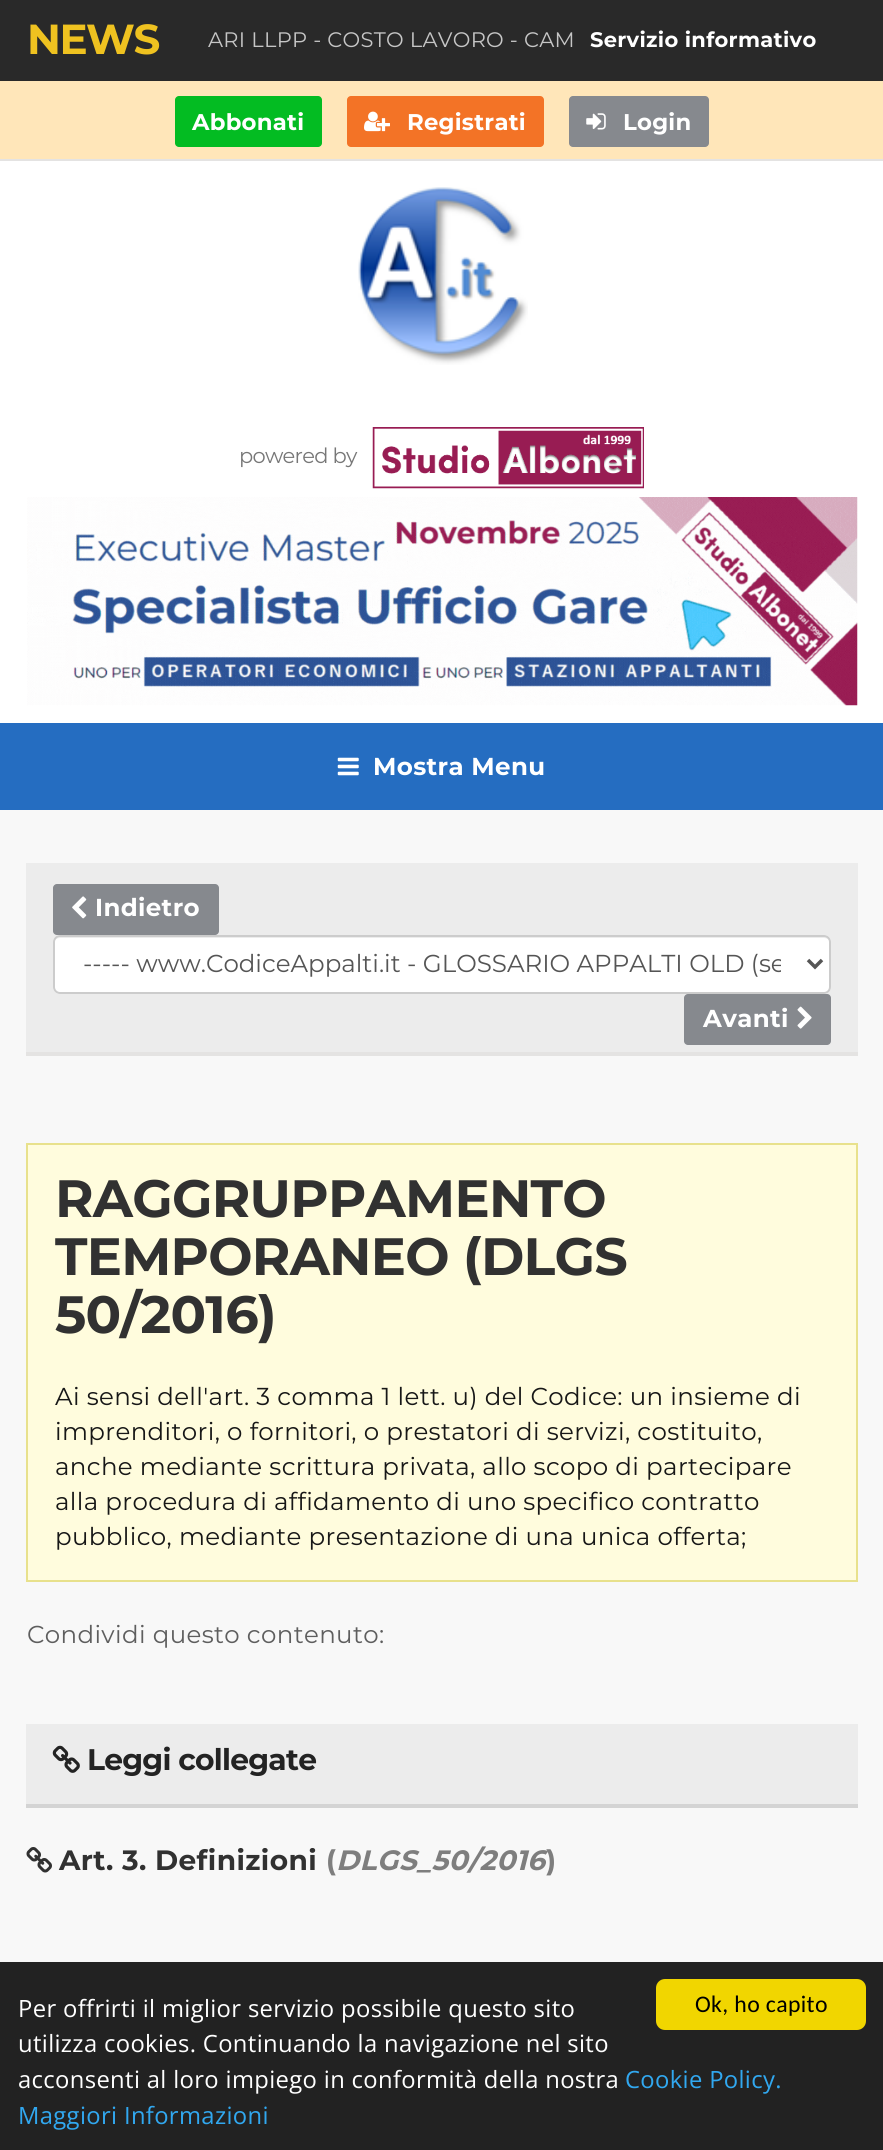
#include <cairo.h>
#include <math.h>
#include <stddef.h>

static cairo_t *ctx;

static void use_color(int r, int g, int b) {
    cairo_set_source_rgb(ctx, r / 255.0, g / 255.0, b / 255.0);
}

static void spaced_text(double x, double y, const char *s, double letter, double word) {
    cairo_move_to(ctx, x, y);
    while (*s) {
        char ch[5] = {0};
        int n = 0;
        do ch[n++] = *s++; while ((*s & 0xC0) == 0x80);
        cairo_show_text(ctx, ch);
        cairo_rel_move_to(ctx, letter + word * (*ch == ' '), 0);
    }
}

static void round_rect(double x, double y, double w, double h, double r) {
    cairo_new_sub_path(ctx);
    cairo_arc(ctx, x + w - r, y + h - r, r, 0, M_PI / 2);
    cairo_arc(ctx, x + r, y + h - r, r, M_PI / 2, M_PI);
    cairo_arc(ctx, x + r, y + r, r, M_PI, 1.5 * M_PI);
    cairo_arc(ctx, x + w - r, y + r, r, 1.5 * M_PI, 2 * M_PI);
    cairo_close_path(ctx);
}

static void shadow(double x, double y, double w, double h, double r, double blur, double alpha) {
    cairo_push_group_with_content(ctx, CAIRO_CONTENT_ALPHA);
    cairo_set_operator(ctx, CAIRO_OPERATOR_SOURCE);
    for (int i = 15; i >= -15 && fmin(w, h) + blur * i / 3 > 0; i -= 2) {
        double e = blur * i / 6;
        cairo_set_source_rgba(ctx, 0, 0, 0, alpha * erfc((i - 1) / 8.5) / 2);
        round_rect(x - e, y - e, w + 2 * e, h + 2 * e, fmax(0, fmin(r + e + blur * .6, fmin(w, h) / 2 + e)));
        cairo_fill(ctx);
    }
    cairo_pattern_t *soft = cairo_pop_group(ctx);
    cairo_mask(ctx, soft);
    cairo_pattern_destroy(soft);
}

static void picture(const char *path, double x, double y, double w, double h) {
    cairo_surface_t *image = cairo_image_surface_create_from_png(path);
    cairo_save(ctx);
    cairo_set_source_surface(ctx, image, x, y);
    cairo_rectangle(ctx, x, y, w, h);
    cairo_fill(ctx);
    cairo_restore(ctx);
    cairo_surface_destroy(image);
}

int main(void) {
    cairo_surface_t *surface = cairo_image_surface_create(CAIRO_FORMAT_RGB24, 883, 2150);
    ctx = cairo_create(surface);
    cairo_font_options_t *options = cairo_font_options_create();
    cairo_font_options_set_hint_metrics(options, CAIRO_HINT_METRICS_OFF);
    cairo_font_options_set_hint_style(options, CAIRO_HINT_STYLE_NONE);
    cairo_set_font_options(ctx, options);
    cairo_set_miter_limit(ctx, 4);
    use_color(248, 248, 248);
    cairo_paint(ctx);
    use_color(255, 255, 255);
    cairo_rectangle(ctx, 0, 161, 883, 562);
    cairo_fill(ctx);
    use_color(41, 41, 41);
    cairo_rectangle(ctx, 0, 0, 883, 81);
    cairo_fill(ctx);
    cairo_select_font_face(ctx, "Montserrat", CAIRO_FONT_SLANT_NORMAL, CAIRO_FONT_WEIGHT_BOLD);
    cairo_set_font_size(ctx, 42);
    use_color(239, 194, 32);
    spaced_text(27, 54, "NEWS", -1.5, 0);
    picture("img3.png", 358, 187, 170, 178);
    cairo_save(ctx);
    cairo_rectangle(ctx, 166, 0, 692, 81);
    cairo_clip(ctx);
    use_color(41, 41, 41);
    shadow(-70, -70, 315, 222, 0, 52.5, 1);
    shadow(796, -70, 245, 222, 0, 52.5, 1);
    cairo_restore(ctx);
    cairo_select_font_face(ctx, "Montserrat", CAIRO_FONT_SLANT_NORMAL, CAIRO_FONT_WEIGHT_NORMAL);
    cairo_set_font_size(ctx, 21);
    use_color(198, 198, 198);
    spaced_text(208, 47, "ARI LLPP - COSTO LAVORO - CAM", 0.3, 0);
    cairo_select_font_face(ctx, "Montserrat", CAIRO_FONT_SLANT_NORMAL, CAIRO_FONT_WEIGHT_BOLD);
    use_color(255, 255, 255);
    spaced_text(590, 47, "Servizio informativo", 0.3, 0);
    use_color(255, 230, 185);
    cairo_rectangle(ctx, 0, 81, 883, 78);
    cairo_fill(ctx);
    use_color(228, 227, 226);
    cairo_rectangle(ctx, 0, 159, 883, 2);
    cairo_fill(ctx);
    use_color(3, 188, 34);
    round_rect(175, 96, 147, 51, 4);
    cairo_fill(ctx);
    cairo_set_font_size(ctx, 22.75);
    use_color(255, 255, 255);
    spaced_text(192, 130, "Abbonati", 0.25, 0);
    use_color(243, 115, 38);
    round_rect(347, 96, 197, 51, 4);
    cairo_fill(ctx);
    picture("img1.png", 364, 111, 26, 21);
    use_color(255, 255, 255);
    spaced_text(407, 130, "Registrati", 0.25, 0);
    use_color(134, 137, 142);
    round_rect(569, 96, 140, 51, 4);
    cairo_fill(ctx);
    picture("img2.png", 586, 113, 20, 17);
    use_color(255, 255, 255);
    spaced_text(623, 130, "Login", 0.25, 0);
    cairo_select_font_face(ctx, "Montserrat", CAIRO_FONT_SLANT_NORMAL, CAIRO_FONT_WEIGHT_NORMAL);
    cairo_set_font_size(ctx, 21);
    use_color(119, 119, 119);
    spaced_text(239, 463, "powered by", -0.75, 0);
    picture("img4.png", 372, 427, 272, 62);
    picture("img5.png", 27, 497, 831, 209);
    use_color(37, 109, 193);
    cairo_rectangle(ctx, 0, 723, 883, 87);
    cairo_fill(ctx);
    picture("img6.png", 337, 757, 22, 19);
    cairo_select_font_face(ctx, "Montserrat", CAIRO_FONT_SLANT_NORMAL, CAIRO_FONT_WEIGHT_BOLD);
    cairo_set_font_size(ctx, 24.5);
    use_color(255, 255, 255);
    spaced_text(373, 775, "Mostra Menu", 0.37, 0);
    use_color(236, 236, 236);
    cairo_rectangle(ctx, 26, 863, 832, 189);
    cairo_fill(ctx);
    use_color(228, 227, 226);
    cairo_rectangle(ctx, 26, 1052, 832, 4);
    cairo_fill(ctx);
    use_color(134, 137, 142);
    round_rect(53, 884, 166, 51, 4);
    cairo_fill(ctx);
    picture("img7.png", 72, 896, 15, 23);
    use_color(255, 255, 255);
    spaced_text(95, 916, "Indietro", 0.37, 0);
    round_rect(53, 935, 778, 59, 7);
    cairo_fill(ctx);
    use_color(236, 236, 236);
    cairo_new_path(ctx);
    cairo_move_to(ctx, 60, 938);
    cairo_line_to(ctx, 824, 938);
    cairo_curve_to(ctx, 827, 938, 830, 940, 830, 943);
    cairo_curve_to(ctx, 830, 940, 829, 936, 825, 936);
    cairo_line_to(ctx, 59, 936);
    cairo_curve_to(ctx, 55, 936, 54, 940, 54, 943);
    cairo_curve_to(ctx, 54, 940, 57, 938, 60, 938);
    cairo_close_path(ctx);
    cairo_fill(ctx);
    round_rect(54, 936, 776, 57, 6);
    use_color(204, 204, 204);
    cairo_stroke(ctx);
    cairo_new_path(ctx);
    cairo_move_to(ctx, 808, 960);
    cairo_line_to(ctx, 815, 967);
    cairo_line_to(ctx, 822, 960);
    use_color(85, 85, 85);
    cairo_set_line_width(ctx, 3.5);
    cairo_stroke(ctx);
    cairo_save(ctx);
    cairo_rectangle(ctx, 82, 947, 699, 35);
    cairo_clip(ctx);
    cairo_select_font_face(ctx, "Montserrat", CAIRO_FONT_SLANT_NORMAL, CAIRO_FONT_WEIGHT_NORMAL);
    cairo_move_to(ctx, 83, 972);
    cairo_show_text(ctx, "----- www.CodiceAppalti.it - GLOSSARIO APPALTI OLD (se");
    cairo_restore(ctx);
    use_color(134, 137, 142);
    round_rect(684, 994, 147, 51, 4);
    cairo_fill(ctx);
    use_color(255, 255, 255);
    spaced_text(703, 1027, "Avanti", 0.37, 0);
    picture("img8.png", 797, 1006, 15, 23);
    use_color(255, 252, 221);
    cairo_rectangle(ctx, 27, 1144, 830, 437);
    cairo_fill_preserve(ctx);
    use_color(232, 225, 140);
    cairo_set_line_width(ctx, 2);
    cairo_stroke(ctx);
    cairo_set_font_size(ctx, 52.5);
    use_color(49, 49, 49);
    spaced_text(55, 1217, "RAGGRUPPAMENTO", -0.75, 0);
    spaced_text(55, 1275, "TEMPORANEO (DLGS", -0.75, 0);
    spaced_text(55, 1333, "50/2016)", -0.75, 0);
    cairo_select_font_face(ctx, "Montserrat", CAIRO_FONT_SLANT_NORMAL, CAIRO_FONT_WEIGHT_NORMAL);
    cairo_set_font_size(ctx, 24.5);
    use_color(23, 23, 23);
    spaced_text(55, 1405, "Ai sensi dell'art. 3 comma 1 lett. u) del Codice: un insieme di", 0.37, 0);
    spaced_text(55, 1440, "imprenditori, o fornitori, o prestatori di servizi, costituito,", 0.37, 0);
    spaced_text(55, 1475, "anche mediante scrittura privata, allo scopo di partecipare", 0.37, 0);
    spaced_text(55, 1510, "alla procedura di affidamento di uno specifico contratto", 0.37, 0);
    spaced_text(55, 1545, "pubblico, mediante presentazione di una unica offerta;", 0.37, 0);
    use_color(94, 94, 94);
    spaced_text(27, 1643, "Condividi questo contenuto:", 0.37, 0);
    use_color(236, 236, 236);
    cairo_rectangle(ctx, 26, 1724, 832, 80);
    cairo_fill(ctx);
    use_color(212, 212, 212);
    cairo_rectangle(ctx, 26, 1804, 832, 4);
    cairo_fill(ctx);
    picture("img9.png", 52, 1745, 28, 28);
    cairo_select_font_face(ctx, "Montserrat", CAIRO_FONT_SLANT_NORMAL, CAIRO_FONT_WEIGHT_BOLD);
    cairo_set_font_size(ctx, 29.75);
    use_color(35, 35, 35);
    spaced_text(87, 1770, "Leggi collegate", -0.75, 0);
    picture("img10.png", 26, 1847, 26, 26);
    cairo_set_font_size(ctx, 28);
    use_color(49, 49, 49);
    spaced_text(59, 1870, "Art. 3. Definizioni", 0.4, 0);
    use_color(126, 126, 126);
    spaced_text(326, 1870, "(", 0.4, 0);
    cairo_select_font_face(ctx, "Montserrat", CAIRO_FONT_SLANT_ITALIC, CAIRO_FONT_WEIGHT_BOLD);
    spaced_text(336, 1870, "DLGS_50/2016", 0.4, 0);
    cairo_select_font_face(ctx, "Montserrat", CAIRO_FONT_SLANT_NORMAL, CAIRO_FONT_WEIGHT_BOLD);
    spaced_text(546, 1870, ")", 0.4, 0);
    use_color(34, 34, 34);
    cairo_rectangle(ctx, 0, 1962, 883, 188);
    cairo_fill(ctx);
    use_color(241, 214, 0);
    round_rect(656, 1979, 210, 51, 9);
    cairo_fill(ctx);
    cairo_select_font_face(ctx, "Carlito", CAIRO_FONT_SLANT_NORMAL, CAIRO_FONT_WEIGHT_NORMAL);
    cairo_set_font_size(ctx, 23.8);
    use_color(0, 0, 0);
    spaced_text(695, 2012, "Ok, ho capito", 0.35, 0);
    cairo_select_font_face(ctx, "Open Sans", CAIRO_FONT_SLANT_NORMAL, CAIRO_FONT_WEIGHT_NORMAL);
    use_color(255, 255, 255);
    spaced_text(18, 2017, "Per offrirti il miglior servizio possibile questo sito", 0.35, 0);
    spaced_text(18, 2052, "utilizza cookies. Continuando la navigazione nel sito", 0.35, 0);
    spaced_text(18, 2088, "acconsenti al loro impiego in conformità della nostra", 0.35, 0);
    use_color(49, 168, 240);
    spaced_text(625, 2088, "Cookie Policy.", 0.35, 0);
    spaced_text(18, 2124, "Maggiori Informazioni", 0.35, 0);
    cairo_surface_write_to_png(surface, "result.png");
    cairo_font_options_destroy(options);
    cairo_destroy(ctx);
    cairo_surface_destroy(surface);
    return 0;
}
